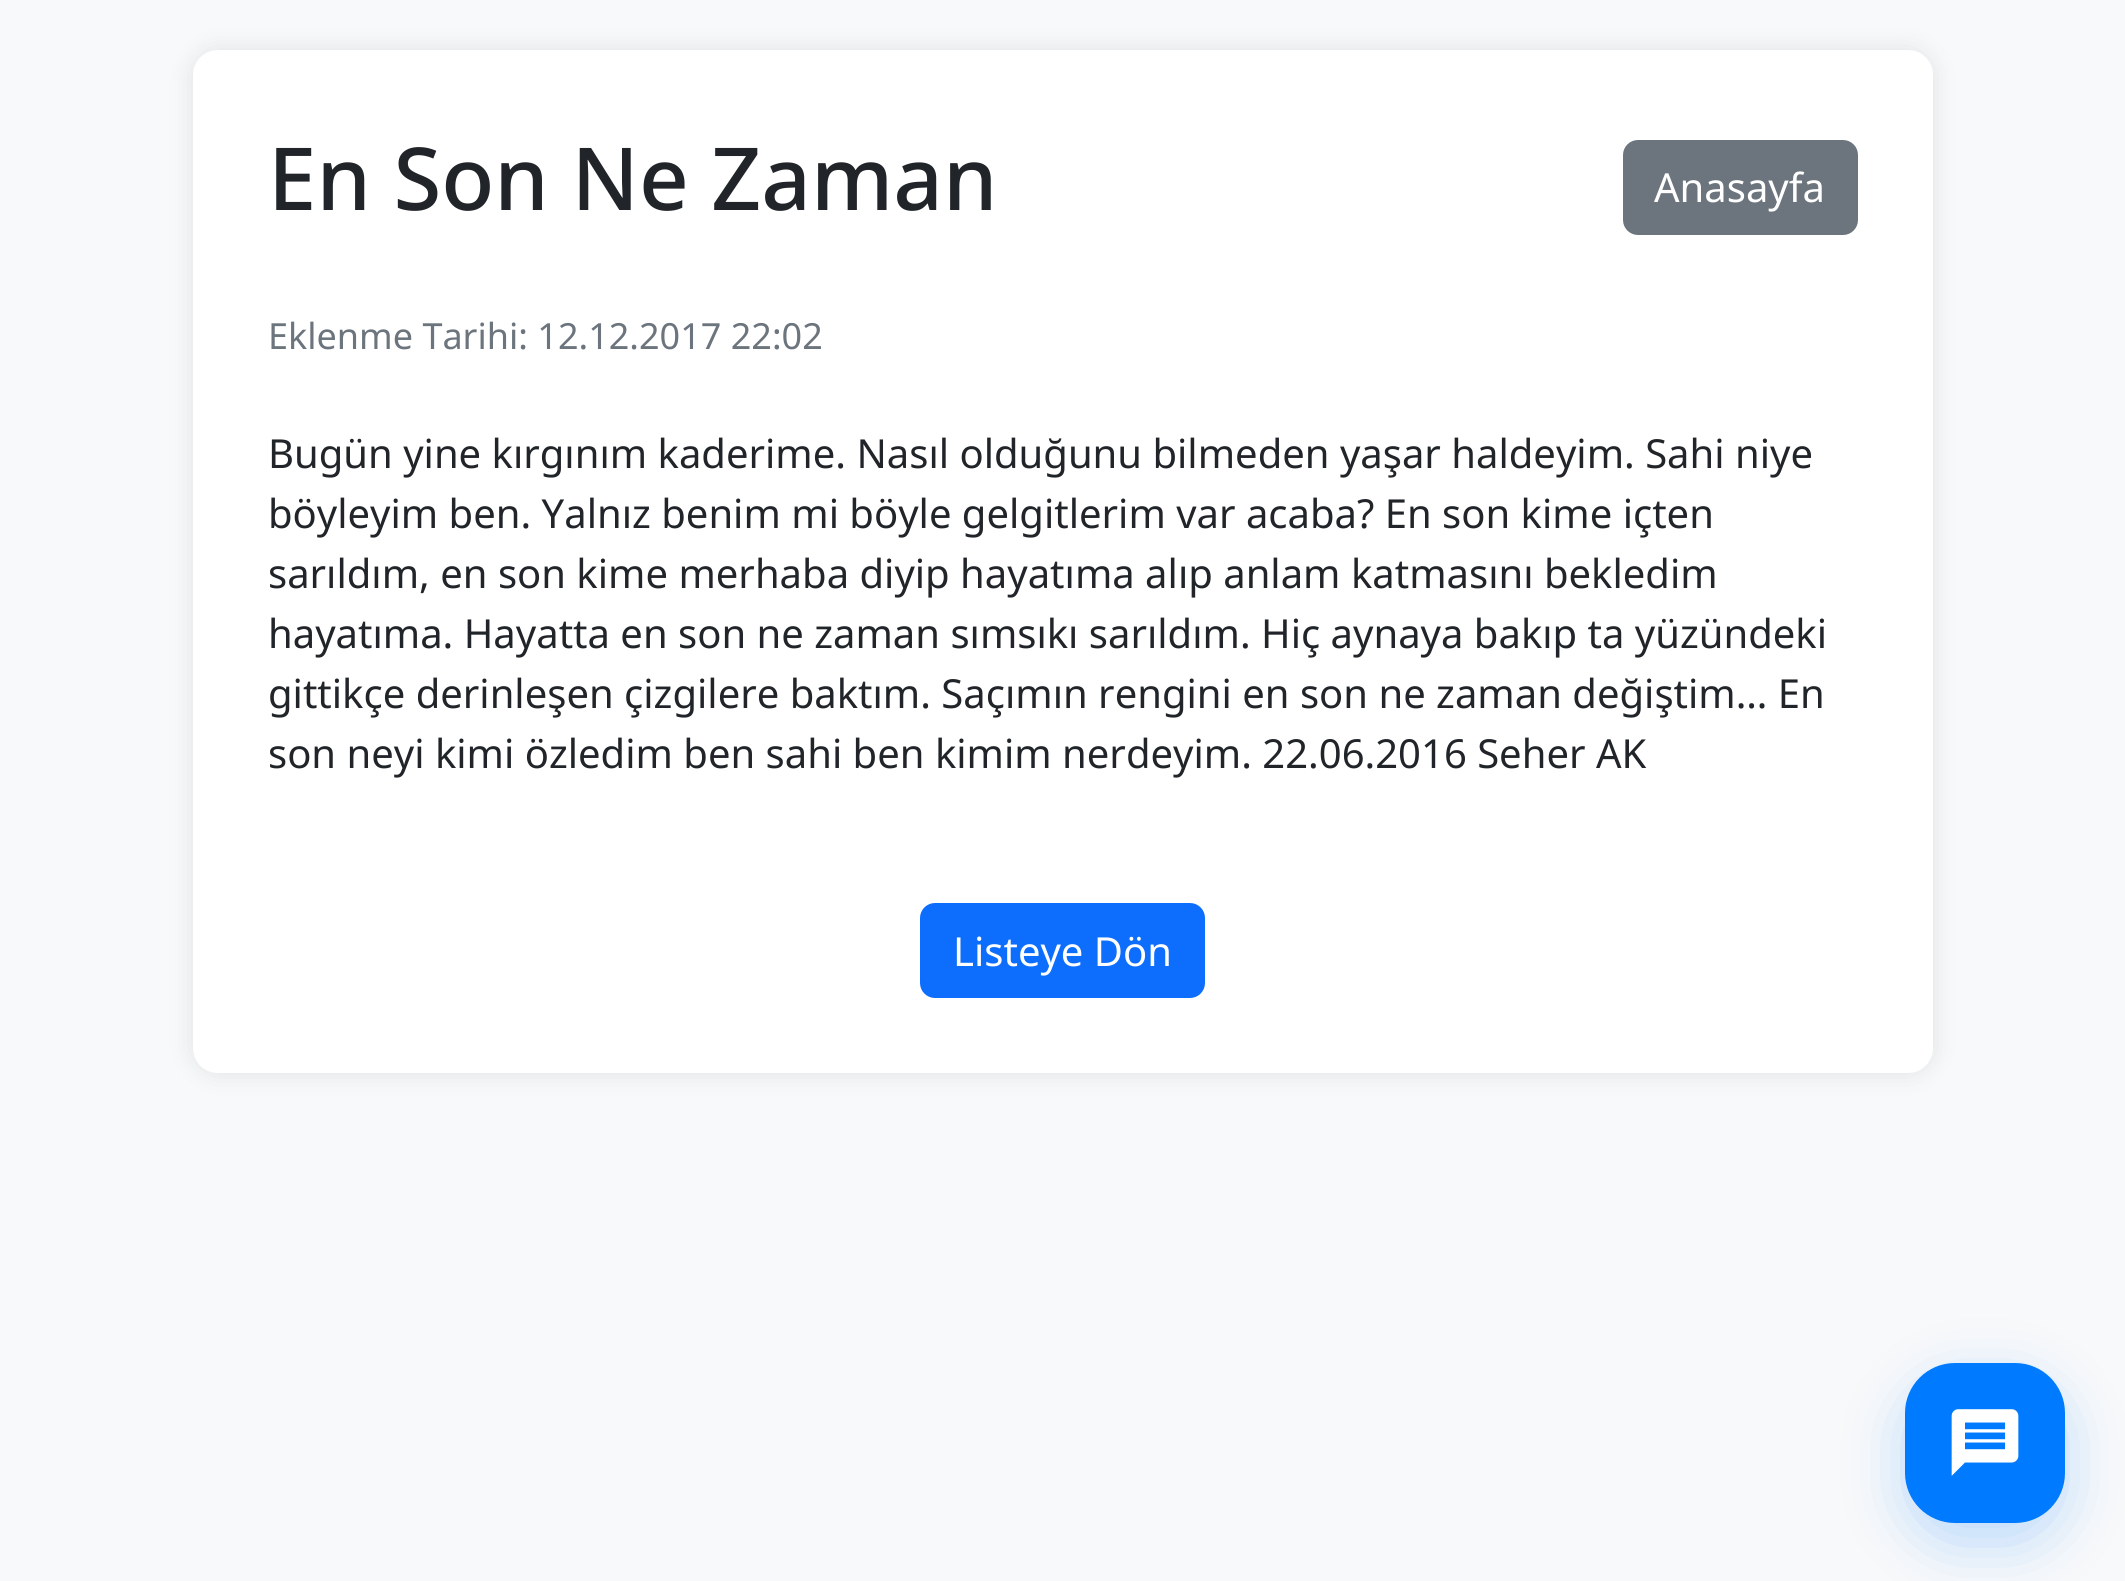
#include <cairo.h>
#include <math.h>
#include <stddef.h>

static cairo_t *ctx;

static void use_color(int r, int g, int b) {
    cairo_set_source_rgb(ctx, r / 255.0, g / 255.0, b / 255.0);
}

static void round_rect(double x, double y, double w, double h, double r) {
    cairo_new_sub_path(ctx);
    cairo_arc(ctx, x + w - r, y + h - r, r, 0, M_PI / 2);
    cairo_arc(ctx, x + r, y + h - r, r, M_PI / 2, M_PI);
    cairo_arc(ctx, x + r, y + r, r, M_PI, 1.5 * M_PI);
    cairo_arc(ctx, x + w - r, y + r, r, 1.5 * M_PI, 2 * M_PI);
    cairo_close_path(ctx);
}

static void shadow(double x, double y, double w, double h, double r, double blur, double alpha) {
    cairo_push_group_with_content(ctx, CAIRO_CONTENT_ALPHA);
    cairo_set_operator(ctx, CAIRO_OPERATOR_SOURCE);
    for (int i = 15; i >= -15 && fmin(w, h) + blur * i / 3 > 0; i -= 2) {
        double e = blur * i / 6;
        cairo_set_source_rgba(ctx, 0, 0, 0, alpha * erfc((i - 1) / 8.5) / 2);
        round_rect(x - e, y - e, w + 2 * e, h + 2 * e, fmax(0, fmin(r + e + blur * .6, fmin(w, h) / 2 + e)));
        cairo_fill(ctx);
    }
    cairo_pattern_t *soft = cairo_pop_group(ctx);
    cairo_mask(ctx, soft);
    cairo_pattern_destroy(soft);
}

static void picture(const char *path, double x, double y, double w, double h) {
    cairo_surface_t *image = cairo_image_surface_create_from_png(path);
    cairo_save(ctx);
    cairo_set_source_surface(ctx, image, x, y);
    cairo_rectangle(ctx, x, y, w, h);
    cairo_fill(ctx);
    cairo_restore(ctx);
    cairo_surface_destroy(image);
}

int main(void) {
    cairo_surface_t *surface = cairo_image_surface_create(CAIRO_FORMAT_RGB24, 2125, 1581);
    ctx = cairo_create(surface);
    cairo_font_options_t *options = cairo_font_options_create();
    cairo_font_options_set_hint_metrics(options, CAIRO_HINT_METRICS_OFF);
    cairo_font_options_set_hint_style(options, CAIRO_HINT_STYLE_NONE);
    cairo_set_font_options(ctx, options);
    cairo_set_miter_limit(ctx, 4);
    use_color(248, 249, 250);
    cairo_paint(ctx);
    use_color(0, 0, 0);
    shadow(193, 50, 1740, 1023, 25, 12.5, 0.1);
    use_color(255, 255, 255);
    round_rect(193, 50, 1740, 1023, 25);
    cairo_fill(ctx);
    cairo_select_font_face(ctx, "Noto Sans Medium", CAIRO_FONT_SLANT_NORMAL, CAIRO_FONT_WEIGHT_NORMAL);
    cairo_set_font_size(ctx, 86.9);
    use_color(33, 37, 41);
    cairo_move_to(ctx, 268, 210);
    cairo_show_text(ctx, "En Son Ne Zaman");
    use_color(108, 117, 125);
    round_rect(1624.5, 141.5, 232, 92, 13.5);
    cairo_fill_preserve(ctx);
    cairo_set_line_width(ctx, 3);
    cairo_stroke(ctx);
    cairo_select_font_face(ctx, "Noto Sans", CAIRO_FONT_SLANT_NORMAL, CAIRO_FONT_WEIGHT_NORMAL);
    cairo_set_font_size(ctx, 40);
    use_color(255, 255, 255);
    cairo_move_to(ctx, 1654, 202);
    cairo_show_text(ctx, "Anasayfa");
    cairo_set_font_size(ctx, 36);
    use_color(108, 117, 125);
    cairo_move_to(ctx, 268, 349);
    cairo_show_text(ctx, "Eklenme Tarihi: 12.12.2017 22:02");
    cairo_set_font_size(ctx, 40);
    use_color(33, 37, 41);
    cairo_move_to(ctx, 268, 468);
    cairo_show_text(ctx, "Bugün yine kırgınım kaderime. Nasıl olduğunu bilmeden yaşar haldeyim. Sahi niye");
    cairo_move_to(ctx, 268, 528);
    cairo_show_text(ctx, "böyleyim ben. Yalnız benim mi böyle gelgitlerim var acaba? En son kime içten");
    cairo_move_to(ctx, 268, 588);
    cairo_show_text(ctx, "sarıldım, en son kime merhaba diyip hayatıma alıp anlam katmasını bekledim");
    cairo_move_to(ctx, 268, 648);
    cairo_show_text(ctx, "hayatıma. Hayatta en son ne zaman sımsıkı sarıldım. Hiç aynaya bakıp ta yüzündeki");
    cairo_move_to(ctx, 268, 708);
    cairo_show_text(ctx, "gittikçe derinleşen çizgilere baktım. Saçımın rengini en son ne zaman değiştim… En");
    cairo_move_to(ctx, 268, 768);
    cairo_show_text(ctx, "son neyi kimi özledim ben sahi ben kimim nerdeyim. 22.06.2016 Seher AK");
    use_color(13, 110, 253);
    round_rect(921.5, 904.5, 282, 92, 13.5);
    cairo_fill_preserve(ctx);
    cairo_stroke(ctx);
    use_color(255, 255, 255);
    cairo_move_to(ctx, 953, 966);
    cairo_show_text(ctx, "Listeye Dön");
    use_color(0, 123, 255);
    shadow(1905, 1383, 160, 160, 50, 30, 0.25);
    use_color(0, 123, 255);
    round_rect(1905, 1363, 160, 160, 50);
    cairo_fill(ctx);
    picture("img1.png", 1951, 1409, 68, 67);
    cairo_surface_write_to_png(surface, "result.png");
    cairo_font_options_destroy(options);
    cairo_destroy(ctx);
    cairo_surface_destroy(surface);
    return 0;
}
